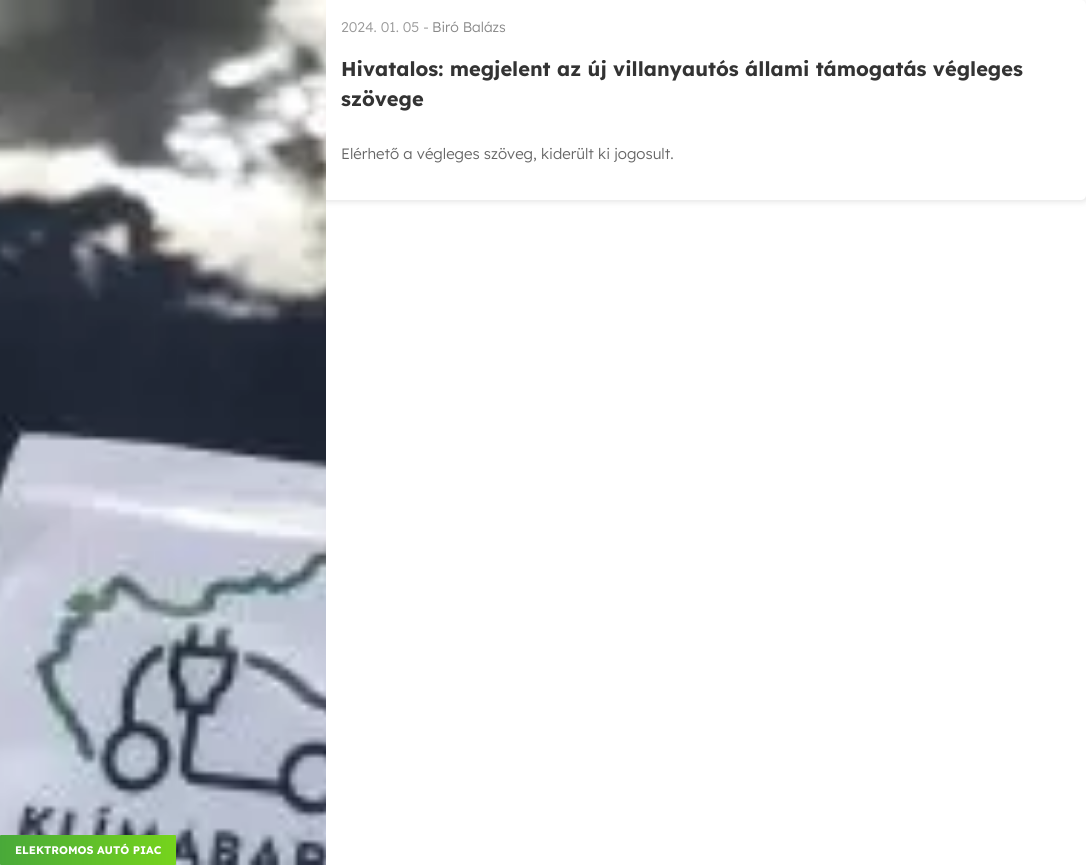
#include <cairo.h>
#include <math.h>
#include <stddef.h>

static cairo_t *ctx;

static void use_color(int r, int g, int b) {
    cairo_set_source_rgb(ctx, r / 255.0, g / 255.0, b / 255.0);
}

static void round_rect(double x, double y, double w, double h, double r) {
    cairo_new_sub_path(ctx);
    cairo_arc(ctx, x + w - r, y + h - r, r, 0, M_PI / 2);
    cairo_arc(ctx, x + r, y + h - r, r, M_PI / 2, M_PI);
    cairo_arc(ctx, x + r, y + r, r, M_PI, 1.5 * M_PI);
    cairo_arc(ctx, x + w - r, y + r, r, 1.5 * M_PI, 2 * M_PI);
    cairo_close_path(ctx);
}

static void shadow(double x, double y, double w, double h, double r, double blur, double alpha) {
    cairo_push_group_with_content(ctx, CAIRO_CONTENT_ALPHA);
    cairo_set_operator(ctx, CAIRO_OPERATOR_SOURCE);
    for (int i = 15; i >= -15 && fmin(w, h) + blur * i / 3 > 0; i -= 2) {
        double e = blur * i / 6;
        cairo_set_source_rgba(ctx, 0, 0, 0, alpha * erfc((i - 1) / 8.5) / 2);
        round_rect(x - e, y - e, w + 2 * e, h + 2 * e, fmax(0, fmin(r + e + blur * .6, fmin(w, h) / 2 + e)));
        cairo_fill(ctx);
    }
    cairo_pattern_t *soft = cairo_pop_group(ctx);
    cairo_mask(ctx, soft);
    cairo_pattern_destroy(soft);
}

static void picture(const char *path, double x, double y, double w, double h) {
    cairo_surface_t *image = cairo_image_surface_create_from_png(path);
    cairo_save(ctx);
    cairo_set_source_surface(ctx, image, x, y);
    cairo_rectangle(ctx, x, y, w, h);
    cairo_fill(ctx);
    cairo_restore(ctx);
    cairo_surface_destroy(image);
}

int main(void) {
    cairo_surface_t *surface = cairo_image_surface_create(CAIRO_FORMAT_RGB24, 1086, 865);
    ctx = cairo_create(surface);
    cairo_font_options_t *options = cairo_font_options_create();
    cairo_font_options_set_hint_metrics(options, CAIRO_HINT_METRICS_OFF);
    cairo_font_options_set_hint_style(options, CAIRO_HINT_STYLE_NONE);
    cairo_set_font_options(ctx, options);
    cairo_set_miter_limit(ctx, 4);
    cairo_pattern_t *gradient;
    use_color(255, 255, 255);
    cairo_paint(ctx);
    use_color(0, 0, 0);
    shadow(2, 2, 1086, 200, 5, 3, 0.1);
    use_color(255, 255, 255);
    round_rect(0, 0, 1086, 200, 5);
    cairo_fill(ctx);
    cairo_select_font_face(ctx, "Lexend Light", CAIRO_FONT_SLANT_NORMAL, CAIRO_FONT_WEIGHT_NORMAL);
    cairo_set_font_size(ctx, 14);
    use_color(153, 153, 153);
    cairo_move_to(ctx, 341, 32);
    cairo_show_text(ctx, "2024. 01. 05 -");
    use_color(136, 136, 136);
    cairo_move_to(ctx, 432, 32);
    cairo_show_text(ctx, "Biró Balázs");
    cairo_select_font_face(ctx, "Lexend", CAIRO_FONT_SLANT_NORMAL, CAIRO_FONT_WEIGHT_BOLD);
    cairo_set_font_size(ctx, 20);
    use_color(51, 51, 51);
    cairo_move_to(ctx, 341, 76);
    cairo_show_text(ctx, "Hivatalos: megjelent az új villanyautós állami támogatás végleges");
    cairo_move_to(ctx, 341, 106);
    cairo_show_text(ctx, "szövege");
    cairo_select_font_face(ctx, "Lexend Light", CAIRO_FONT_SLANT_NORMAL, CAIRO_FONT_WEIGHT_NORMAL);
    cairo_set_font_size(ctx, 15);
    use_color(102, 102, 102);
    cairo_move_to(ctx, 341, 159);
    cairo_show_text(ctx, "Elérhető a végleges szöveg, kiderült ki jogosult.");
    picture("img1.png", 0, 0, 326, 865);
    gradient = cairo_pattern_create_linear(0, 850, 176, 850);
    cairo_pattern_add_color_stop_rgba(gradient, 0, 0.286, 0.663, 0.224, 1);
    cairo_pattern_add_color_stop_rgba(gradient, 1, 0.463, 0.831, 0.11, 1);
    cairo_set_source(ctx, gradient);
    cairo_pattern_destroy(gradient);
    round_rect(0, 835, 176, 30, 1);
    cairo_fill(ctx);
    cairo_select_font_face(ctx, "Lexend", CAIRO_FONT_SLANT_NORMAL, CAIRO_FONT_WEIGHT_BOLD);
    cairo_set_font_size(ctx, 11);
    use_color(255, 255, 255);
    cairo_move_to(ctx, 15, 854);
    cairo_show_text(ctx, "ELEKTROMOS AUTÓ PIAC");
    cairo_surface_write_to_png(surface, "result.png");
    cairo_font_options_destroy(options);
    cairo_destroy(ctx);
    cairo_surface_destroy(surface);
    return 0;
}
